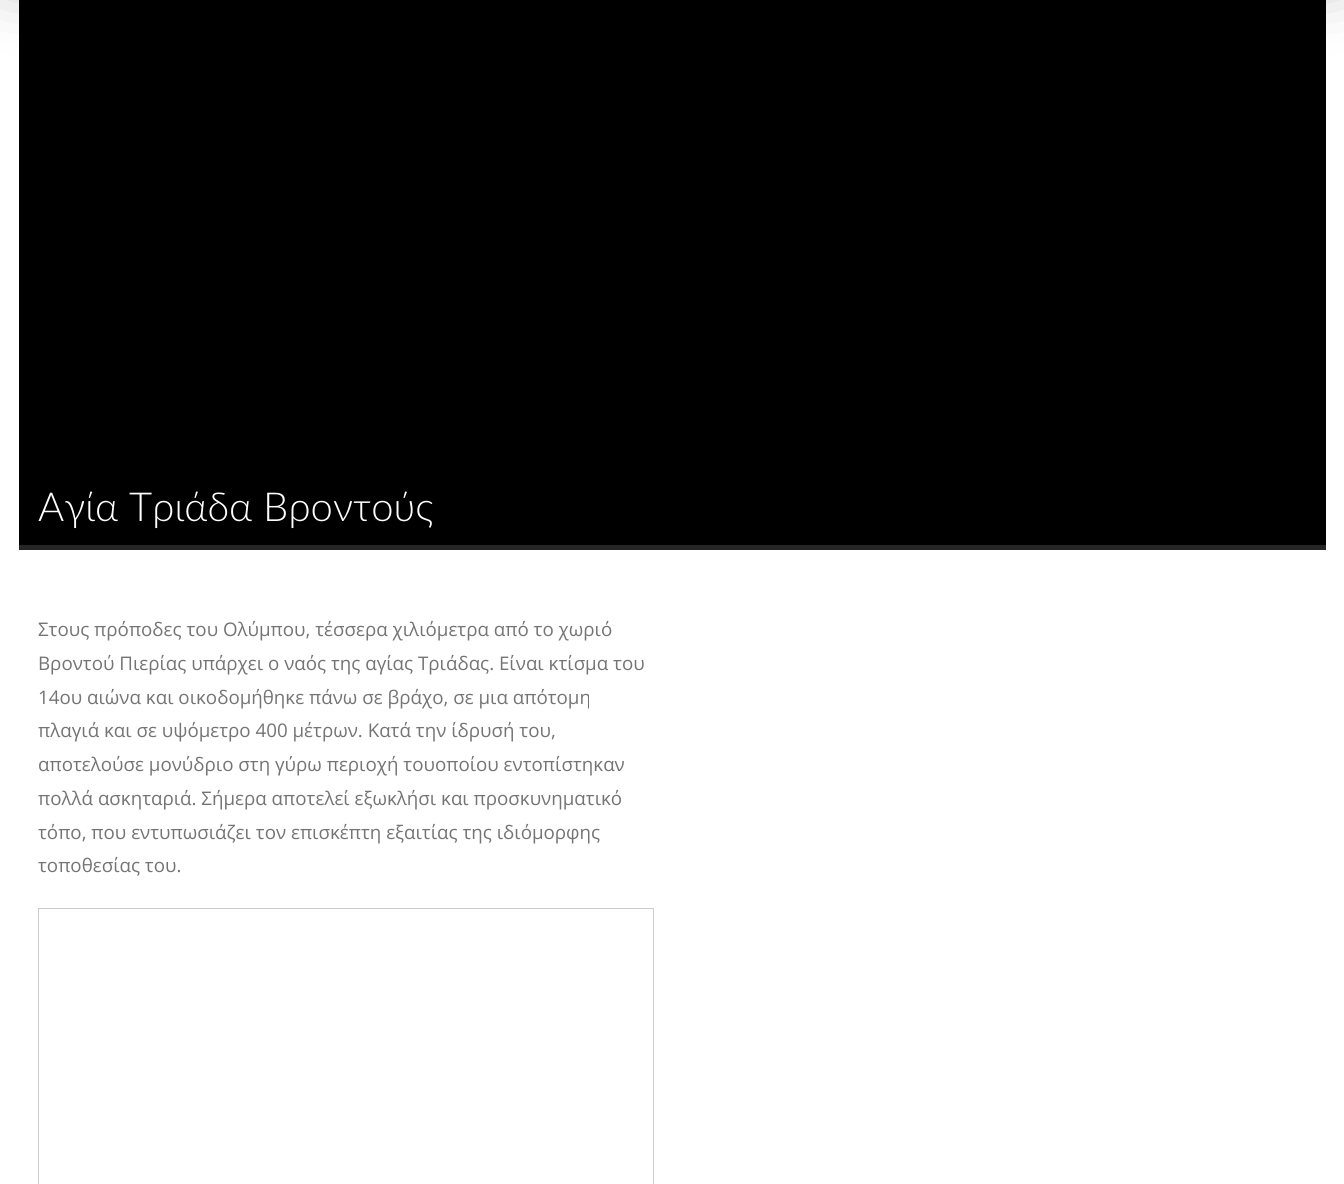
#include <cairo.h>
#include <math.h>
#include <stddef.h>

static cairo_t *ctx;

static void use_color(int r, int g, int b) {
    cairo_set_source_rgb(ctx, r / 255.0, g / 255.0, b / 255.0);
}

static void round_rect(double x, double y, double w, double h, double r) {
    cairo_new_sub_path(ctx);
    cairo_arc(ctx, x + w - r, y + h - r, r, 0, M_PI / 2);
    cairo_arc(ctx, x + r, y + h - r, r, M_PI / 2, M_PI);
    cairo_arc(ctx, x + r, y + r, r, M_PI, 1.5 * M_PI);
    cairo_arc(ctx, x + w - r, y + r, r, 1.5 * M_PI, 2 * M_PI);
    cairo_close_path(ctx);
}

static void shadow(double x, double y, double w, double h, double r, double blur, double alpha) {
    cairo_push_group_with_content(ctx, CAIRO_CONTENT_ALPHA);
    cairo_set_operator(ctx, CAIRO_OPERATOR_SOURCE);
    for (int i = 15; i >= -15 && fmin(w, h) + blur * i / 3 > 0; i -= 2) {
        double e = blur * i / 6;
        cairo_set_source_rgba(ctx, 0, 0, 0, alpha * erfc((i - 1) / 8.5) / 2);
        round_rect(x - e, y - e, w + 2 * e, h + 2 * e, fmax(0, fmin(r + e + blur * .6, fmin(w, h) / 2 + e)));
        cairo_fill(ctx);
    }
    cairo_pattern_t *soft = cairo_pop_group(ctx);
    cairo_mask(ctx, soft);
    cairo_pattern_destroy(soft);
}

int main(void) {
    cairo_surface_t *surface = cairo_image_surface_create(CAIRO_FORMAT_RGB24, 1344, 1184);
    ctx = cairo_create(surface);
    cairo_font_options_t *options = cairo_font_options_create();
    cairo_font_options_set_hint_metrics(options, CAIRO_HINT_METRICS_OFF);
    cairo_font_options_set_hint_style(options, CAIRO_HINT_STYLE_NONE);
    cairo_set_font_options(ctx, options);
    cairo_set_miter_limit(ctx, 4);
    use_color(255, 255, 255);
    cairo_paint(ctx);
    use_color(38, 38, 38);
    cairo_rectangle(ctx, 19, 545, 1307, 5);
    cairo_fill(ctx);
    use_color(0, 0, 0);
    cairo_rectangle(ctx, 19, 0, 1307, 545);
    cairo_fill(ctx);
    use_color(0, 0, 0);
    shadow(3, -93, 1340, 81, 0, 31, 0.24);
    cairo_select_font_face(ctx, "Lato Light", CAIRO_FONT_SLANT_NORMAL, CAIRO_FONT_WEIGHT_NORMAL);
    cairo_set_font_size(ctx, 40);
    use_color(255, 255, 255);
    cairo_move_to(ctx, 38, 521);
    cairo_show_text(ctx, "Αγία Τριάδα Βροντούς");
    cairo_select_font_face(ctx, "Open Sans", CAIRO_FONT_SLANT_NORMAL, CAIRO_FONT_WEIGHT_NORMAL);
    cairo_set_font_size(ctx, 18.75);
    use_color(116, 116, 116);
    cairo_move_to(ctx, 38, 636);
    cairo_show_text(ctx, "Στους πρόποδες του Ολύμπου, τέσσερα χιλιόμετρα από το χωριό");
    cairo_move_to(ctx, 38, 670);
    cairo_show_text(ctx, "Βροντού Πιερίας υπάρχει ο ναός της αγίας Τριάδας. Είναι κτίσμα του");
    cairo_move_to(ctx, 38, 704);
    cairo_show_text(ctx, "14ου αιώνα και οικοδομήθηκε πάνω σε βράχο, σε μια απότομη");
    cairo_move_to(ctx, 38, 737);
    cairo_show_text(ctx, "πλαγιά και σε υψόμετρο 400 μέτρων. Κατά την ίδρυσή του,");
    cairo_move_to(ctx, 38, 771);
    cairo_show_text(ctx, "αποτελούσε μονύδριο στη γύρω περιοχή τουοποίου εντοπίστηκαν");
    cairo_move_to(ctx, 38, 805);
    cairo_show_text(ctx, "πολλά ασκηταριά. Σήμερα αποτελεί εξωκλήσι και προσκυνηματικό");
    cairo_move_to(ctx, 38, 839);
    cairo_show_text(ctx, "τόπο, που εντυπωσιάζει τον επισκέπτη εξαιτίας της ιδιόμορφης");
    cairo_move_to(ctx, 38, 872);
    cairo_show_text(ctx, "τοποθεσίας του.");
    cairo_rectangle(ctx, 38.5, 908.5, 615, 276);
    use_color(204, 204, 204);
    cairo_set_line_width(ctx, 1);
    cairo_stroke(ctx);
    cairo_surface_write_to_png(surface, "result.png");
    cairo_font_options_destroy(options);
    cairo_destroy(ctx);
    cairo_surface_destroy(surface);
    return 0;
}
